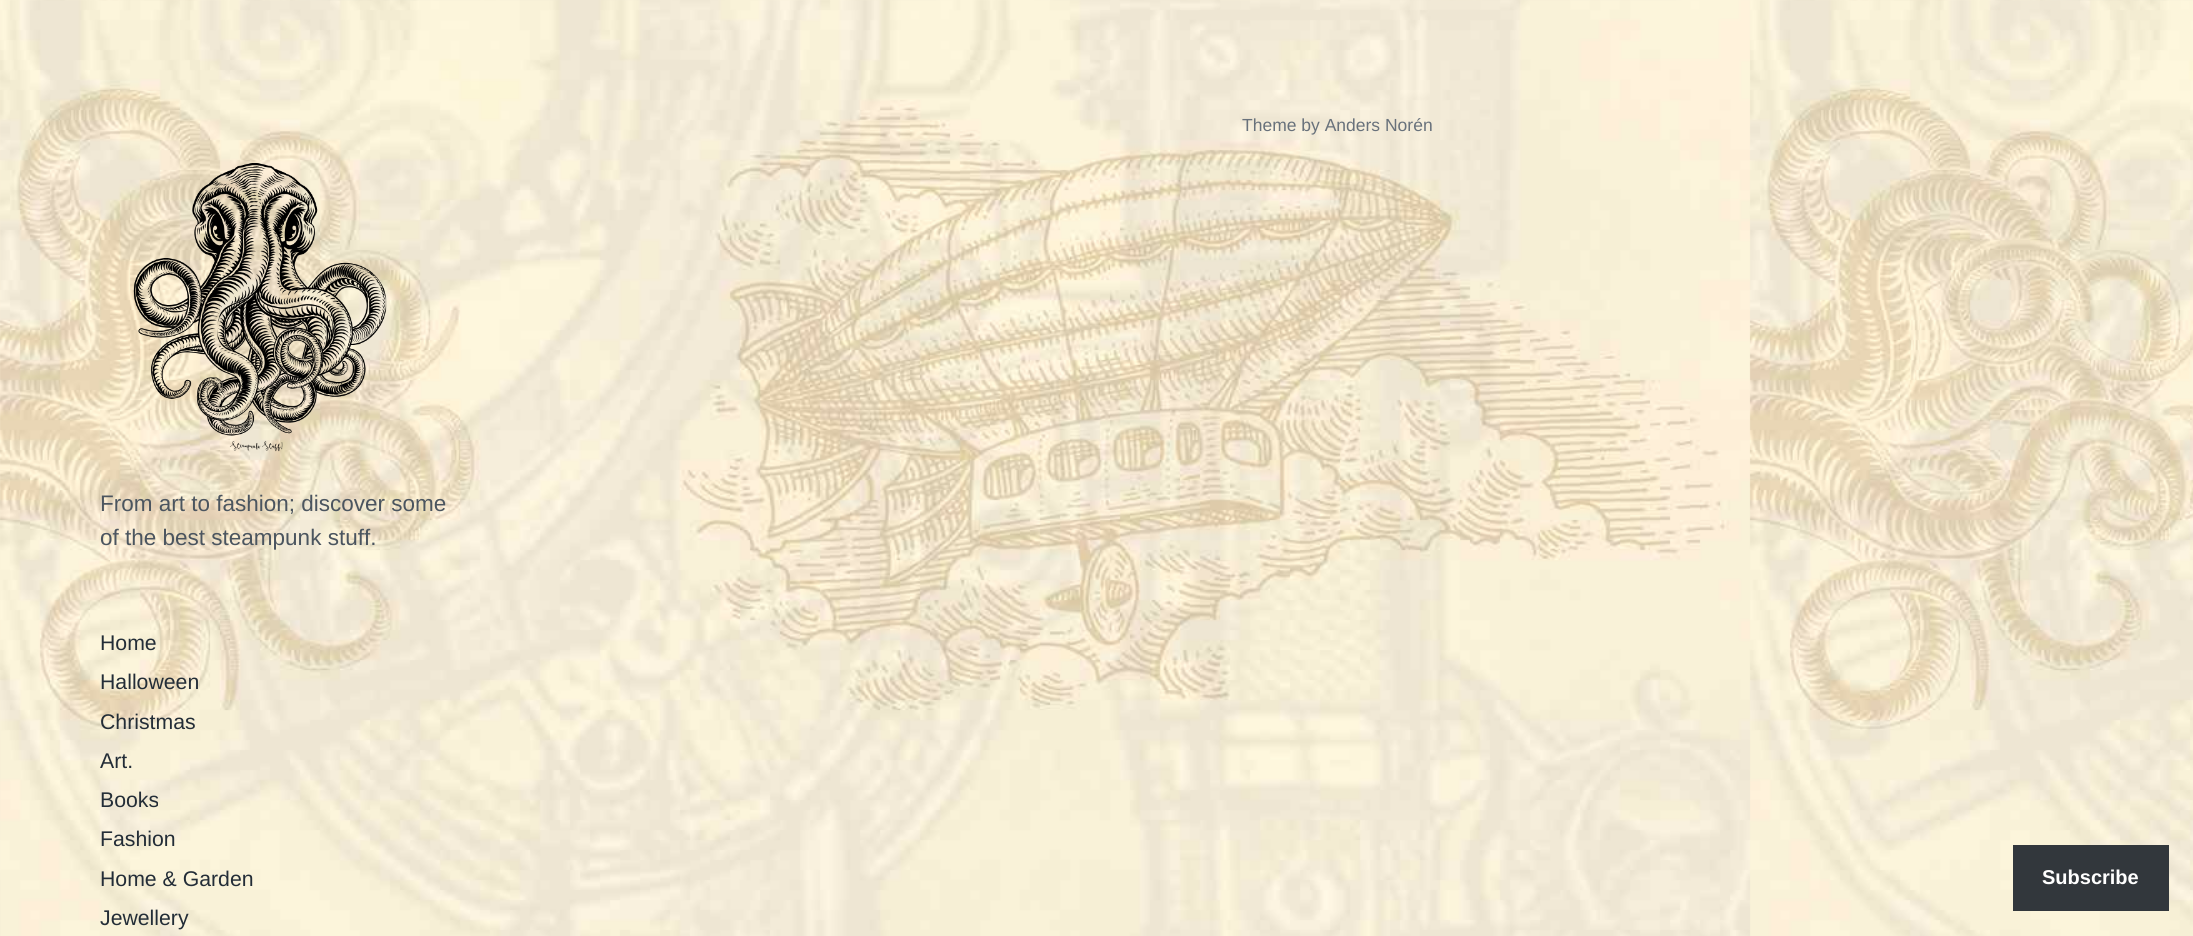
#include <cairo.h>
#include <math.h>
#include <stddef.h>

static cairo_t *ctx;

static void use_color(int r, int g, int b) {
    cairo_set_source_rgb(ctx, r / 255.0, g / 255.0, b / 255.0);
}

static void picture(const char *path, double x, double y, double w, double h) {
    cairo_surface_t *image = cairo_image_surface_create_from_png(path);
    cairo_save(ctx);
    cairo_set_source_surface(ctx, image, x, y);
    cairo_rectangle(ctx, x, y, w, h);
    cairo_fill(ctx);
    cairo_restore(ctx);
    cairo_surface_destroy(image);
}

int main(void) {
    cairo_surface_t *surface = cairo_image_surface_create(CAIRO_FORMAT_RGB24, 2193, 936);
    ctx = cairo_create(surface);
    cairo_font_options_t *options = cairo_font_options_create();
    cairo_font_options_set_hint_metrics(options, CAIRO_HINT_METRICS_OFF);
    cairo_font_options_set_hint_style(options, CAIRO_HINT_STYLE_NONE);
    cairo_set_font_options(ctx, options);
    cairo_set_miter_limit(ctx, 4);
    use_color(255, 255, 255);
    cairo_paint(ctx);
    picture("img1.png", 0, 0, 2193, 936);
    cairo_select_font_face(ctx, "Liberation Sans", CAIRO_FONT_SLANT_NORMAL, CAIRO_FONT_WEIGHT_NORMAL);
    cairo_set_font_size(ctx, 17.5);
    use_color(104, 113, 123);
    cairo_move_to(ctx, 1242, 131);
    cairo_show_text(ctx, "Theme by Anders Norén");
    picture("img2.png", 133, 163, 254, 289);
    cairo_set_font_size(ctx, 22.5);
    use_color(75, 85, 95);
    cairo_move_to(ctx, 100, 511);
    cairo_show_text(ctx, "From art to fashion; discover some");
    cairo_move_to(ctx, 100, 545);
    cairo_show_text(ctx, "of the best steampunk stuff.");
    cairo_set_font_size(ctx, 21.25);
    use_color(35, 45, 55);
    cairo_move_to(ctx, 100, 650);
    cairo_show_text(ctx, "Home");
    cairo_move_to(ctx, 100, 689);
    cairo_show_text(ctx, "Halloween");
    cairo_move_to(ctx, 100, 729);
    cairo_show_text(ctx, "Christmas");
    cairo_move_to(ctx, 100, 768);
    cairo_show_text(ctx, "Art.");
    cairo_move_to(ctx, 100, 807);
    cairo_show_text(ctx, "Books");
    cairo_move_to(ctx, 100, 846);
    cairo_show_text(ctx, "Fashion");
    cairo_move_to(ctx, 100, 886);
    cairo_show_text(ctx, "Home & Garden");
    cairo_move_to(ctx, 100, 925);
    cairo_show_text(ctx, "Jewellery");
    use_color(50, 55, 60);
    cairo_rectangle(ctx, 2013, 845, 156, 66);
    cairo_fill(ctx);
    cairo_select_font_face(ctx, "Liberation Sans", CAIRO_FONT_SLANT_NORMAL, CAIRO_FONT_WEIGHT_BOLD);
    cairo_set_font_size(ctx, 20);
    use_color(255, 255, 255);
    cairo_move_to(ctx, 2042, 884);
    cairo_show_text(ctx, "Subscribe");
    cairo_surface_write_to_png(surface, "result.png");
    cairo_font_options_destroy(options);
    cairo_destroy(ctx);
    cairo_surface_destroy(surface);
    return 0;
}
